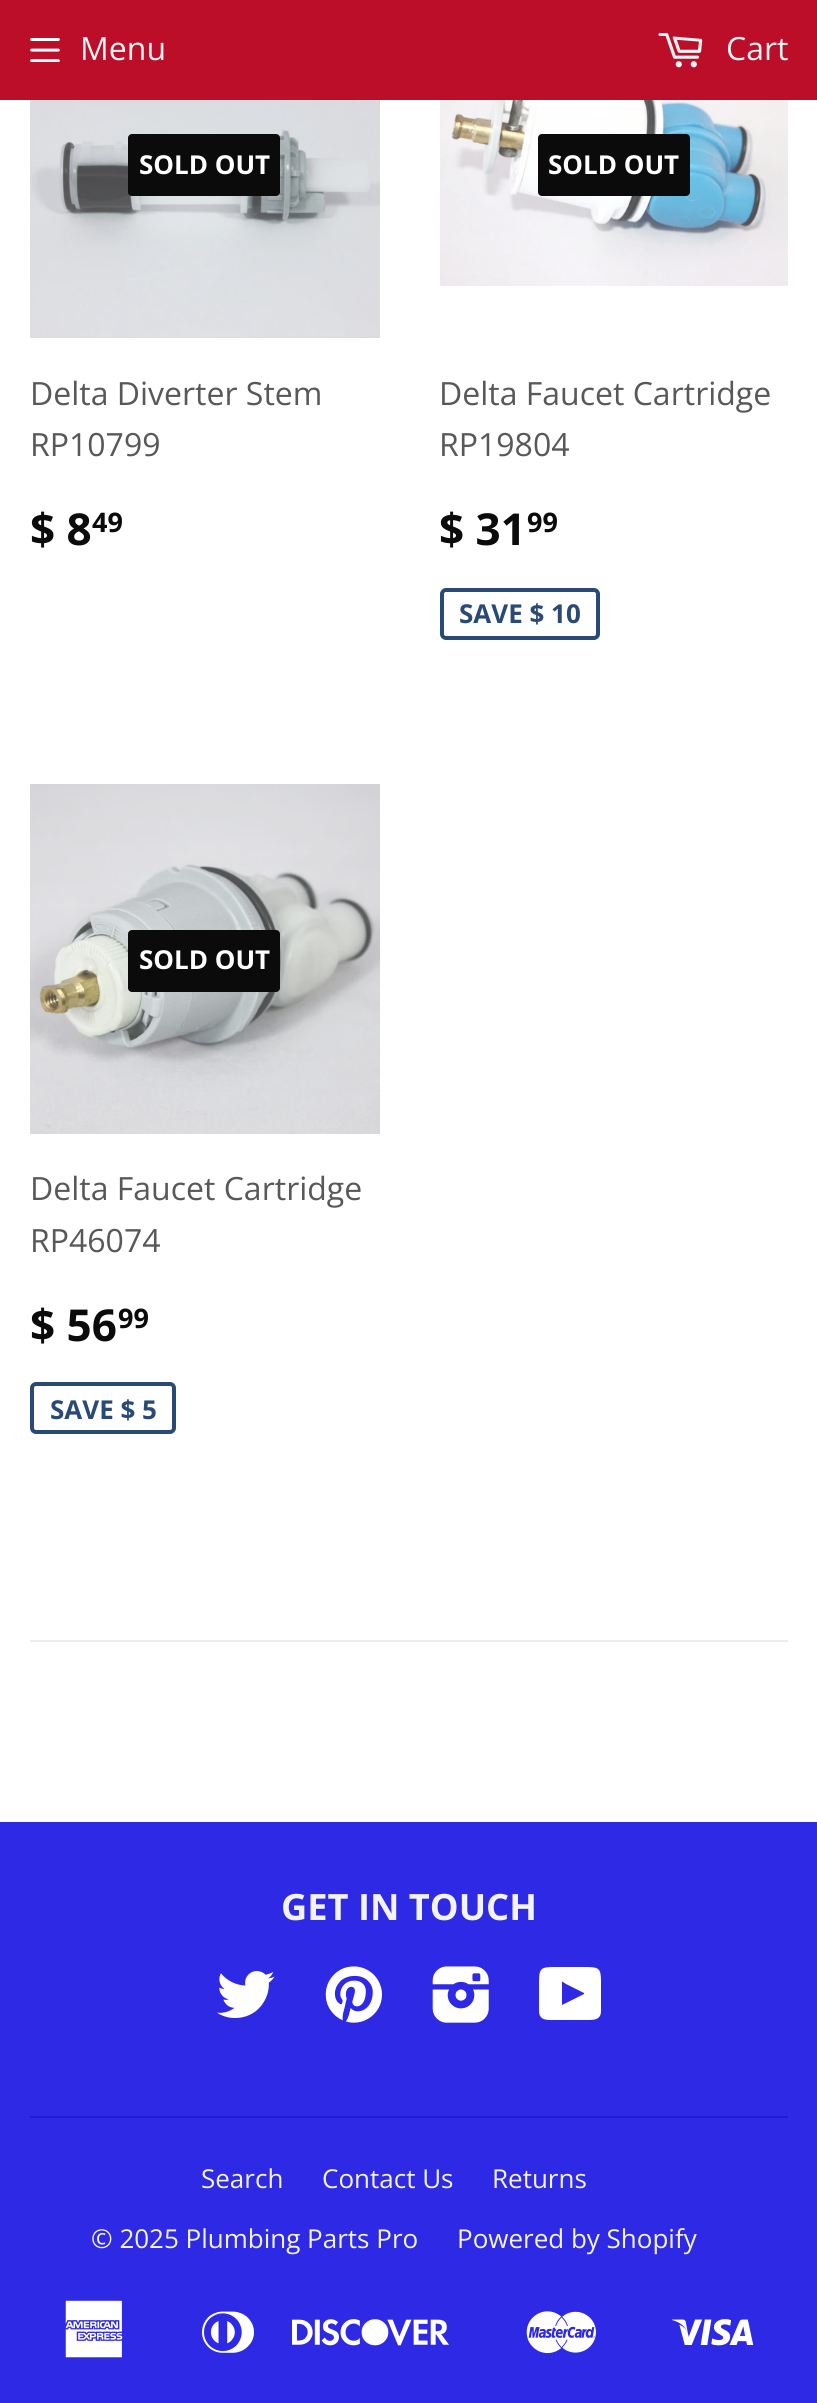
#include <cairo.h>
#include <math.h>
#include <stddef.h>

static cairo_t *ctx;

static void use_color(int r, int g, int b) {
    cairo_set_source_rgb(ctx, r / 255.0, g / 255.0, b / 255.0);
}

static void round_rect(double x, double y, double w, double h, double r) {
    cairo_new_sub_path(ctx);
    cairo_arc(ctx, x + w - r, y + h - r, r, 0, M_PI / 2);
    cairo_arc(ctx, x + r, y + h - r, r, M_PI / 2, M_PI);
    cairo_arc(ctx, x + r, y + r, r, M_PI, 1.5 * M_PI);
    cairo_arc(ctx, x + w - r, y + r, r, 1.5 * M_PI, 2 * M_PI);
    cairo_close_path(ctx);
}

static void picture(const char *path, double x, double y, double w, double h) {
    cairo_surface_t *image = cairo_image_surface_create_from_png(path);
    cairo_save(ctx);
    cairo_set_source_surface(ctx, image, x, y);
    cairo_rectangle(ctx, x, y, w, h);
    cairo_fill(ctx);
    cairo_restore(ctx);
    cairo_surface_destroy(image);
}

int main(void) {
    cairo_surface_t *surface = cairo_image_surface_create(CAIRO_FORMAT_RGB24, 817, 2403);
    ctx = cairo_create(surface);
    cairo_font_options_t *options = cairo_font_options_create();
    cairo_font_options_set_hint_metrics(options, CAIRO_HINT_METRICS_OFF);
    cairo_font_options_set_hint_style(options, CAIRO_HINT_STYLE_NONE);
    cairo_set_font_options(ctx, options);
    cairo_set_miter_limit(ctx, 4);
    use_color(255, 255, 255);
    cairo_paint(ctx);
    use_color(189, 14, 41);
    cairo_rectangle(ctx, 0, 0, 817, 100);
    cairo_fill(ctx);
    picture("img1.png", 30, 38, 30, 24);
    cairo_select_font_face(ctx, "Open Sans", CAIRO_FONT_SLANT_NORMAL, CAIRO_FONT_WEIGHT_NORMAL);
    cairo_set_font_size(ctx, 32);
    use_color(243, 243, 243);
    cairo_move_to(ctx, 80, 60);
    cairo_show_text(ctx, "Menu");
    picture("img2.png", 658, 33, 45, 35);
    cairo_move_to(ctx, 726, 60);
    cairo_show_text(ctx, "Cart");
    picture("img3.png", 30, 100, 350, 238);
    use_color(12, 11, 11);
    round_rect(128, 134, 152, 62, 4);
    cairo_fill(ctx);
    cairo_select_font_face(ctx, "Open Sans", CAIRO_FONT_SLANT_NORMAL, CAIRO_FONT_WEIGHT_BOLD);
    cairo_set_font_size(ctx, 26);
    use_color(255, 255, 255);
    cairo_move_to(ctx, 139, 174);
    cairo_show_text(ctx, "SOLD OUT");
    cairo_select_font_face(ctx, "Open Sans", CAIRO_FONT_SLANT_NORMAL, CAIRO_FONT_WEIGHT_NORMAL);
    cairo_set_font_size(ctx, 32);
    use_color(88, 88, 88);
    cairo_move_to(ctx, 30, 405);
    cairo_show_text(ctx, "Delta Diverter Stem");
    cairo_move_to(ctx, 30, 456);
    cairo_show_text(ctx, "RP10799");
    cairo_select_font_face(ctx, "Open Sans", CAIRO_FONT_SLANT_NORMAL, CAIRO_FONT_WEIGHT_BOLD);
    cairo_set_font_size(ctx, 44);
    use_color(12, 11, 11);
    cairo_move_to(ctx, 30, 545);
    cairo_show_text(ctx, "$ 8");
    cairo_set_font_size(ctx, 27);
    cairo_move_to(ctx, 92, 532);
    cairo_show_text(ctx, "49");
    picture("img4.png", 440, 100, 348, 186);
    round_rect(538, 134, 152, 62, 4);
    cairo_fill(ctx);
    cairo_set_font_size(ctx, 26);
    use_color(255, 255, 255);
    cairo_move_to(ctx, 548, 174);
    cairo_show_text(ctx, "SOLD OUT");
    cairo_select_font_face(ctx, "Open Sans", CAIRO_FONT_SLANT_NORMAL, CAIRO_FONT_WEIGHT_NORMAL);
    cairo_set_font_size(ctx, 32);
    use_color(88, 88, 88);
    cairo_move_to(ctx, 439, 405);
    cairo_show_text(ctx, "Delta Faucet Cartridge");
    cairo_move_to(ctx, 439, 456);
    cairo_show_text(ctx, "RP19804");
    cairo_select_font_face(ctx, "Open Sans", CAIRO_FONT_SLANT_NORMAL, CAIRO_FONT_WEIGHT_BOLD);
    cairo_set_font_size(ctx, 44);
    use_color(12, 11, 11);
    cairo_move_to(ctx, 439, 545);
    cairo_show_text(ctx, "$ 31");
    cairo_set_font_size(ctx, 27);
    cairo_move_to(ctx, 527, 532);
    cairo_show_text(ctx, "99");
    round_rect(442, 590, 156, 48, 4);
    use_color(41, 74, 118);
    cairo_set_line_width(ctx, 4);
    cairo_stroke(ctx);
    cairo_set_font_size(ctx, 26);
    cairo_move_to(ctx, 459, 623);
    cairo_show_text(ctx, "SAVE $ 10");
    picture("img5.png", 30, 784, 350, 350);
    use_color(12, 11, 11);
    round_rect(128, 930, 152, 62, 4);
    cairo_fill(ctx);
    use_color(255, 255, 255);
    cairo_move_to(ctx, 139, 969);
    cairo_show_text(ctx, "SOLD OUT");
    cairo_select_font_face(ctx, "Open Sans", CAIRO_FONT_SLANT_NORMAL, CAIRO_FONT_WEIGHT_NORMAL);
    cairo_set_font_size(ctx, 32);
    use_color(88, 88, 88);
    cairo_move_to(ctx, 30, 1200);
    cairo_show_text(ctx, "Delta Faucet Cartridge");
    cairo_move_to(ctx, 30, 1252);
    cairo_show_text(ctx, "RP46074");
    cairo_select_font_face(ctx, "Open Sans", CAIRO_FONT_SLANT_NORMAL, CAIRO_FONT_WEIGHT_BOLD);
    cairo_set_font_size(ctx, 44);
    use_color(12, 11, 11);
    cairo_move_to(ctx, 30, 1341);
    cairo_show_text(ctx, "$ 56");
    cairo_set_font_size(ctx, 27);
    cairo_move_to(ctx, 118, 1328);
    cairo_show_text(ctx, "99");
    round_rect(32, 1384, 142, 48, 4);
    use_color(41, 74, 118);
    cairo_stroke(ctx);
    cairo_set_font_size(ctx, 26);
    cairo_move_to(ctx, 50, 1419);
    cairo_show_text(ctx, "SAVE $ 5");
    use_color(236, 236, 236);
    cairo_rectangle(ctx, 30, 1640, 758, 2);
    cairo_fill(ctx);
    use_color(46, 41, 228);
    cairo_rectangle(ctx, 0, 1822, 817, 581);
    cairo_fill(ctx);
    cairo_set_font_size(ctx, 36.25);
    use_color(243, 243, 243);
    cairo_move_to(ctx, 281, 1920);
    cairo_show_text(ctx, "GET IN TOUCH");
    picture("img6.png", 217, 1971, 58, 47);
    picture("img7.png", 325, 1966, 57, 57);
    picture("img8.png", 432, 1966, 57, 57);
    use_color(255, 255, 255);
    cairo_new_path(ctx);
    cairo_move_to(ctx, 539, 2011);
    cairo_curve_to(ctx, 539, 2021, 548, 2020, 555, 2020);
    cairo_line_to(ctx, 585, 2020);
    cairo_curve_to(ctx, 592, 2020, 601, 2021, 601, 2011);
    cairo_line_to(ctx, 601, 1982);
    cairo_curve_to(ctx, 601, 1968, 599, 1967, 585, 1967);
    cairo_line_to(ctx, 555, 1967);
    cairo_curve_to(ctx, 541, 1967, 539, 1968, 539, 1982);
    cairo_close_path(ctx);
    cairo_move_to(ctx, 562, 2005);
    cairo_line_to(ctx, 562, 1986);
    cairo_curve_to(ctx, 562, 1980, 561, 1981, 566, 1984);
    cairo_line_to(ctx, 584, 1993);
    cairo_line_to(ctx, 584, 1994);
    cairo_close_path(ctx);
    cairo_fill(ctx);
    use_color(32, 27, 216);
    cairo_rectangle(ctx, 30, 2116, 758, 2);
    cairo_fill(ctx);
    cairo_select_font_face(ctx, "Open Sans", CAIRO_FONT_SLANT_NORMAL, CAIRO_FONT_WEIGHT_NORMAL);
    cairo_set_font_size(ctx, 26);
    use_color(243, 243, 243);
    cairo_move_to(ctx, 201, 2188);
    cairo_show_text(ctx, "Search");
    cairo_move_to(ctx, 322, 2188);
    cairo_show_text(ctx, "Contact Us");
    cairo_move_to(ctx, 492, 2188);
    cairo_show_text(ctx, "Returns");
    cairo_move_to(ctx, 91, 2248);
    cairo_show_text(ctx, "© 2025 Plumbing Parts Pro");
    cairo_move_to(ctx, 457, 2248);
    cairo_show_text(ctx, "Powered by Shopify");
    picture("img9.png", 65, 2300, 58, 58);
    picture("img10.png", 202, 2311, 52, 42);
    picture("img11.png", 292, 2319, 157, 27);
    picture("img12.png", 526, 2311, 70, 43);
    picture("img13.png", 672, 2319, 82, 27);
    cairo_surface_write_to_png(surface, "result.png");
    cairo_font_options_destroy(options);
    cairo_destroy(ctx);
    cairo_surface_destroy(surface);
    return 0;
}
